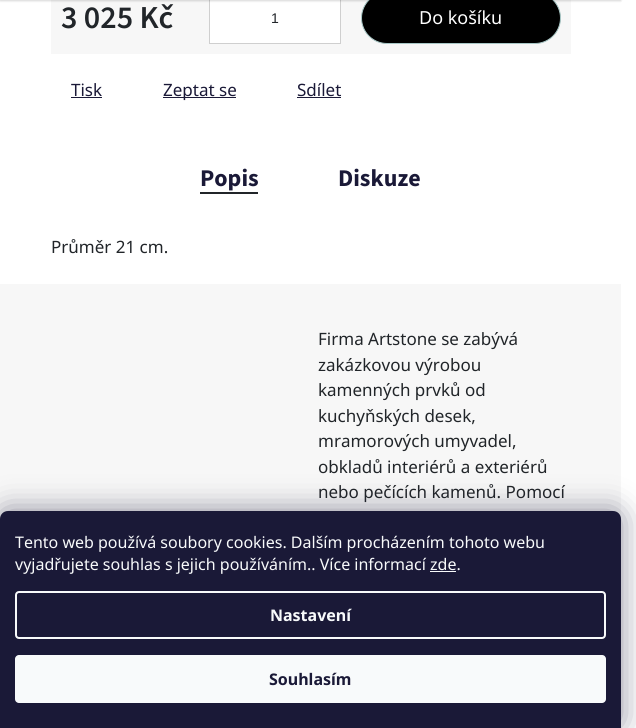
#include <cairo.h>
#include <math.h>
#include <stddef.h>

static cairo_t *ctx;

static void use_color(int r, int g, int b) {
    cairo_set_source_rgb(ctx, r / 255.0, g / 255.0, b / 255.0);
}

static void round_rect(double x, double y, double w, double h, double r) {
    cairo_new_sub_path(ctx);
    cairo_arc(ctx, x + w - r, y + h - r, r, 0, M_PI / 2);
    cairo_arc(ctx, x + r, y + h - r, r, M_PI / 2, M_PI);
    cairo_arc(ctx, x + r, y + r, r, M_PI, 1.5 * M_PI);
    cairo_arc(ctx, x + w - r, y + r, r, 1.5 * M_PI, 2 * M_PI);
    cairo_close_path(ctx);
}

static void shadow(double x, double y, double w, double h, double r, double blur, double alpha) {
    cairo_push_group_with_content(ctx, CAIRO_CONTENT_ALPHA);
    cairo_set_operator(ctx, CAIRO_OPERATOR_SOURCE);
    for (int i = 15; i >= -15 && fmin(w, h) + blur * i / 3 > 0; i -= 2) {
        double e = blur * i / 6;
        cairo_set_source_rgba(ctx, 0, 0, 0, alpha * erfc((i - 1) / 8.5) / 2);
        round_rect(x - e, y - e, w + 2 * e, h + 2 * e, fmax(0, fmin(r + e + blur * .6, fmin(w, h) / 2 + e)));
        cairo_fill(ctx);
    }
    cairo_pattern_t *soft = cairo_pop_group(ctx);
    cairo_mask(ctx, soft);
    cairo_pattern_destroy(soft);
}

int main(void) {
    cairo_surface_t *surface = cairo_image_surface_create(CAIRO_FORMAT_RGB24, 636, 728);
    ctx = cairo_create(surface);
    cairo_font_options_t *options = cairo_font_options_create();
    cairo_font_options_set_hint_metrics(options, CAIRO_HINT_METRICS_OFF);
    cairo_font_options_set_hint_style(options, CAIRO_HINT_STYLE_NONE);
    cairo_set_font_options(ctx, options);
    cairo_set_miter_limit(ctx, 4);
    use_color(255, 255, 255);
    cairo_paint(ctx);
    use_color(247, 247, 247);
    cairo_rectangle(ctx, 51, 0, 520, 54);
    cairo_fill(ctx);
    use_color(255, 255, 255);
    cairo_rectangle(ctx, 209.5, -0.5, 131, 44);
    cairo_fill_preserve(ctx);
    use_color(207, 207, 207);
    cairo_set_line_width(ctx, 1);
    cairo_stroke(ctx);
    use_color(0, 0, 0);
    round_rect(361.5, -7.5, 199, 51, 25.5);
    cairo_fill_preserve(ctx);
    use_color(168, 199, 198);
    cairo_stroke(ctx);
    use_color(0, 0, 0);
    shadow(0, -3, 621, 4, 0, 1, 0.16);
    cairo_select_font_face(ctx, "Source Sans 3 SemiBold", CAIRO_FONT_SLANT_NORMAL, CAIRO_FONT_WEIGHT_NORMAL);
    cairo_set_font_size(ctx, 32);
    use_color(33, 37, 41);
    cairo_move_to(ctx, 61, 28);
    cairo_show_text(ctx, "3 025 Kč");
    cairo_select_font_face(ctx, "Liberation Sans", CAIRO_FONT_SLANT_NORMAL, CAIRO_FONT_WEIGHT_NORMAL);
    cairo_set_font_size(ctx, 14);
    cairo_move_to(ctx, 271, 23);
    cairo_show_text(ctx, "1");
    cairo_select_font_face(ctx, "Noto Sans", CAIRO_FONT_SLANT_NORMAL, CAIRO_FONT_WEIGHT_NORMAL);
    cairo_set_font_size(ctx, 18);
    use_color(255, 255, 255);
    cairo_move_to(ctx, 419, 24);
    cairo_show_text(ctx, "Do košíku");
    cairo_set_font_size(ctx, 17);
    use_color(26, 25, 55);
    cairo_move_to(ctx, 71, 96);
    cairo_show_text(ctx, "Tisk");
    cairo_rectangle(ctx, 71, 97, 31, 1);
    cairo_fill(ctx);
    cairo_rectangle(ctx, 163, 97, 73, 1);
    cairo_fill(ctx);
    cairo_move_to(ctx, 163, 96);
    cairo_show_text(ctx, "Zeptat se");
    cairo_move_to(ctx, 297, 96);
    cairo_show_text(ctx, "Sdílet");
    cairo_rectangle(ctx, 297, 97, 44, 1);
    cairo_fill(ctx);
    cairo_select_font_face(ctx, "Source Sans 3", CAIRO_FONT_SLANT_NORMAL, CAIRO_FONT_WEIGHT_BOLD);
    cairo_set_font_size(ctx, 24);
    cairo_move_to(ctx, 200, 186);
    cairo_show_text(ctx, "Popis");
    use_color(33, 37, 41);
    cairo_rectangle(ctx, 200, 192, 58, 2);
    cairo_fill(ctx);
    use_color(26, 25, 55);
    cairo_move_to(ctx, 338, 186);
    cairo_show_text(ctx, "Diskuze");
    cairo_select_font_face(ctx, "Noto Sans", CAIRO_FONT_SLANT_NORMAL, CAIRO_FONT_WEIGHT_NORMAL);
    cairo_set_font_size(ctx, 17);
    use_color(33, 37, 41);
    cairo_move_to(ctx, 51, 253);
    cairo_show_text(ctx, "Průměr 21 cm.");
    use_color(247, 247, 247);
    cairo_rectangle(ctx, 0, 284, 621, 235);
    cairo_fill(ctx);
    use_color(33, 37, 41);
    cairo_move_to(ctx, 318, 345);
    cairo_show_text(ctx, "Firma Artstone se zabývá");
    cairo_move_to(ctx, 318, 371);
    cairo_show_text(ctx, "zakázkovou výrobou");
    cairo_move_to(ctx, 318, 396);
    cairo_show_text(ctx, "kamenných prvků od");
    cairo_move_to(ctx, 318, 422);
    cairo_show_text(ctx, "kuchyňských desek,");
    cairo_move_to(ctx, 318, 447);
    cairo_show_text(ctx, "mramorových umyvadel,");
    cairo_move_to(ctx, 318, 473);
    cairo_show_text(ctx, "obkladů interiérů a exteriérů");
    cairo_move_to(ctx, 318, 498);
    cairo_show_text(ctx, "nebo pečících kamenů. Pomocí");
    use_color(27, 25, 57);
    shadow(0, 511, 621, 217, 8, 15, 0.5);
    use_color(26, 25, 55);
    cairo_new_path(ctx);
    cairo_move_to(ctx, 8, 511);
    cairo_line_to(ctx, 613, 511);
    cairo_curve_to(ctx, 617.5, 511, 621, 514.5, 621, 519);
    cairo_line_to(ctx, 621, 728);
    cairo_line_to(ctx, 0, 728);
    cairo_line_to(ctx, 0, 519);
    cairo_curve_to(ctx, 0, 514.5, 3.5, 511, 8, 511);
    cairo_close_path(ctx);
    cairo_fill(ctx);
    cairo_set_font_size(ctx, 16);
    use_color(248, 250, 251);
    cairo_move_to(ctx, 15, 548);
    cairo_show_text(ctx, "Tento web používá soubory cookies. Dalším procházením tohoto webu");
    cairo_move_to(ctx, 15, 570);
    cairo_show_text(ctx, "vyjadřujete souhlas s jejich používáním.. Více informací zde.");
    cairo_rectangle(ctx, 430, 571, 26, 1);
    cairo_fill(ctx);
    round_rect(16, 592, 589, 46, 3);
    cairo_set_line_width(ctx, 2);
    cairo_stroke(ctx);
    cairo_select_font_face(ctx, "Noto Sans", CAIRO_FONT_SLANT_NORMAL, CAIRO_FONT_WEIGHT_BOLD);
    cairo_move_to(ctx, 270, 621);
    cairo_show_text(ctx, "Nastavení");
    round_rect(15, 655, 591, 48, 4);
    cairo_fill(ctx);
    use_color(26, 25, 55);
    cairo_move_to(ctx, 269, 685);
    cairo_show_text(ctx, "Souhlasím");
    cairo_surface_write_to_png(surface, "result.png");
    cairo_font_options_destroy(options);
    cairo_destroy(ctx);
    cairo_surface_destroy(surface);
    return 0;
}
